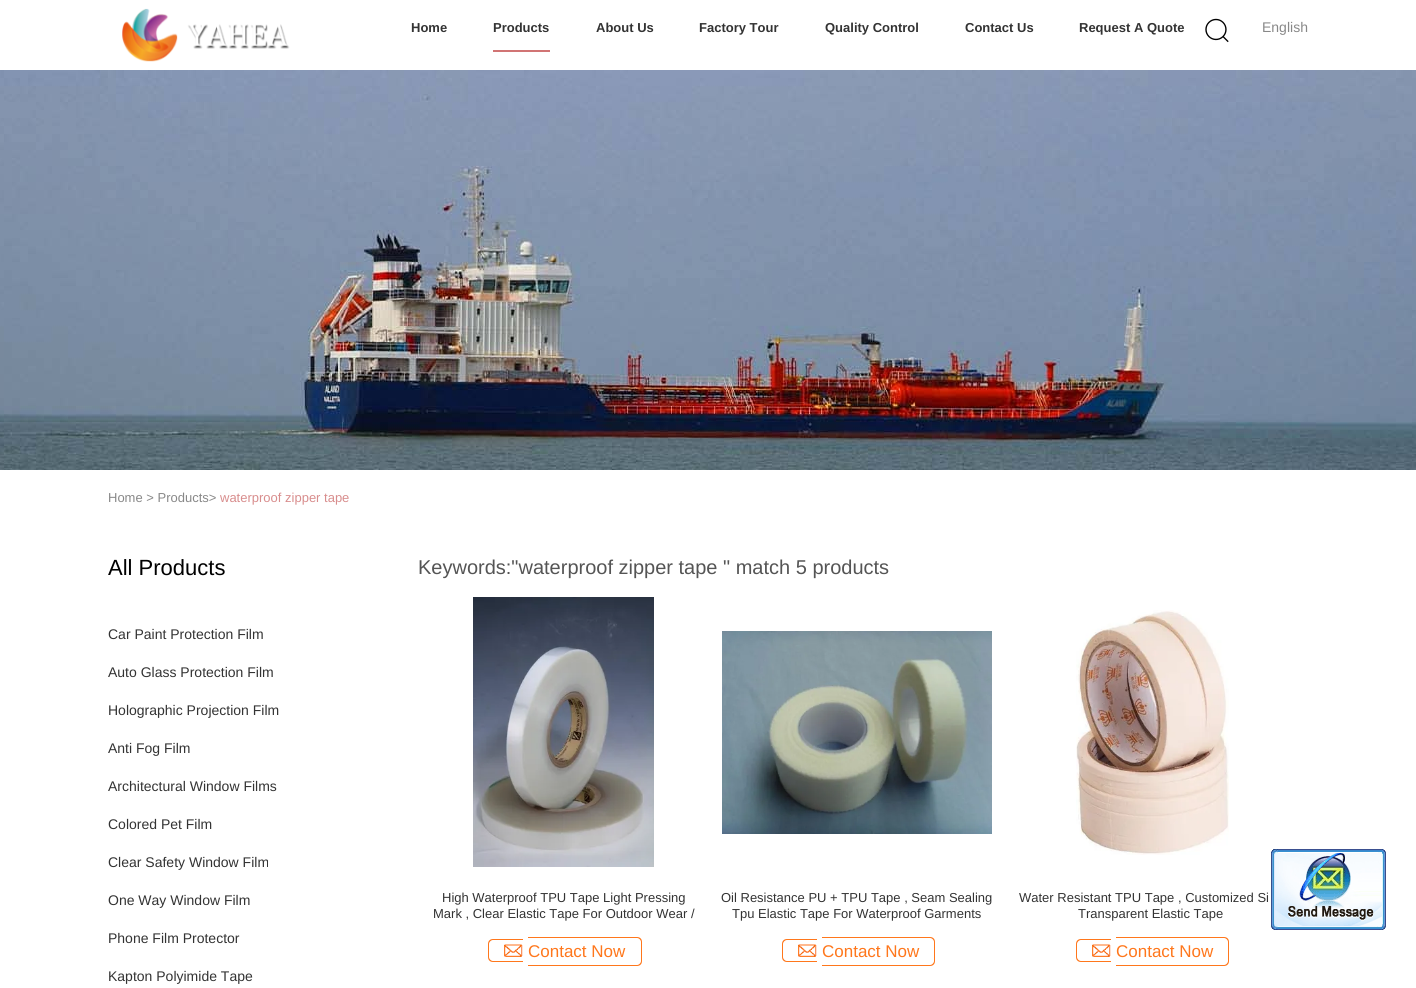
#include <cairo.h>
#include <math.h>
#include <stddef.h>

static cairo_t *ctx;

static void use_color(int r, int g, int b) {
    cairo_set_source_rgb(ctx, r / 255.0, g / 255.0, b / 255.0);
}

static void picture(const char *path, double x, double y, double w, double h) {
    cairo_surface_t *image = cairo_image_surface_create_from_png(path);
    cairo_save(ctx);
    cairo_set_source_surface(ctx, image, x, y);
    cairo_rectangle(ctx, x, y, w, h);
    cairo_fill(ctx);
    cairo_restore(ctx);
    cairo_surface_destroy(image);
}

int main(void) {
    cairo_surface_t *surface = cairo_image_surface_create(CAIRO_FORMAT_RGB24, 1416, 988);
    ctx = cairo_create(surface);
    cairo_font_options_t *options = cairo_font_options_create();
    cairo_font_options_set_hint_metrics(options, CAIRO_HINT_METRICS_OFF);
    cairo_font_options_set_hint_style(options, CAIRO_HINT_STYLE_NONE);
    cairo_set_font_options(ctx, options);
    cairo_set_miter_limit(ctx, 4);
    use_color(255, 255, 255);
    cairo_paint(ctx);
    picture("img1.png", 122, 8, 168, 54);
    cairo_select_font_face(ctx, "Liberation Sans", CAIRO_FONT_SLANT_NORMAL, CAIRO_FONT_WEIGHT_BOLD);
    cairo_set_font_size(ctx, 13);
    use_color(51, 51, 51);
    cairo_move_to(ctx, 411, 32);
    cairo_show_text(ctx, "Home");
    use_color(209, 116, 116);
    cairo_rectangle(ctx, 493, 50, 57, 2);
    cairo_fill(ctx);
    use_color(51, 51, 51);
    cairo_move_to(ctx, 493, 32);
    cairo_show_text(ctx, "Products");
    cairo_move_to(ctx, 596, 32);
    cairo_show_text(ctx, "About Us");
    cairo_move_to(ctx, 699, 32);
    cairo_show_text(ctx, "Factory Tour");
    cairo_move_to(ctx, 825, 32);
    cairo_show_text(ctx, "Quality Control");
    cairo_move_to(ctx, 965, 32);
    cairo_show_text(ctx, "Contact Us");
    cairo_move_to(ctx, 1079, 32);
    cairo_show_text(ctx, "Request A Quote");
    picture("img2.png", 1205, 18, 24, 25);
    cairo_select_font_face(ctx, "Liberation Sans", CAIRO_FONT_SLANT_NORMAL, CAIRO_FONT_WEIGHT_NORMAL);
    cairo_set_font_size(ctx, 14);
    use_color(136, 136, 136);
    cairo_move_to(ctx, 1262, 32);
    cairo_show_text(ctx, "English");
    picture("img3.png", 0, 70, 1416, 400);
    cairo_set_font_size(ctx, 13);
    cairo_move_to(ctx, 108, 502);
    cairo_show_text(ctx, "Home > Products>");
    use_color(216, 141, 141);
    cairo_move_to(ctx, 220, 502);
    cairo_show_text(ctx, "waterproof zipper tape");
    cairo_set_font_size(ctx, 22);
    use_color(0, 0, 0);
    cairo_move_to(ctx, 108, 575);
    cairo_show_text(ctx, "All Products");
    cairo_set_font_size(ctx, 14);
    use_color(51, 51, 51);
    cairo_move_to(ctx, 108, 639);
    cairo_show_text(ctx, "Car Paint Protection Film");
    cairo_move_to(ctx, 108, 677);
    cairo_show_text(ctx, "Auto Glass Protection Film");
    cairo_move_to(ctx, 108, 715);
    cairo_show_text(ctx, "Holographic Projection Film");
    cairo_move_to(ctx, 108, 753);
    cairo_show_text(ctx, "Anti Fog Film");
    cairo_move_to(ctx, 108, 791);
    cairo_show_text(ctx, "Architectural Window Films");
    cairo_move_to(ctx, 108, 829);
    cairo_show_text(ctx, "Colored Pet Film");
    cairo_move_to(ctx, 108, 867);
    cairo_show_text(ctx, "Clear Safety Window Film");
    cairo_move_to(ctx, 108, 905);
    cairo_show_text(ctx, "One Way Window Film");
    cairo_move_to(ctx, 108, 943);
    cairo_show_text(ctx, "Phone Film Protector");
    cairo_move_to(ctx, 108, 981);
    cairo_show_text(ctx, "Kapton Polyimide Tape");
    cairo_set_font_size(ctx, 20);
    use_color(85, 85, 85);
    cairo_move_to(ctx, 418, 574);
    cairo_show_text(ctx, "Keywords:\"waterproof zipper tape \" match 5 products");
    picture("img4.png", 473, 597, 181, 270);
    cairo_set_font_size(ctx, 13);
    use_color(51, 51, 51);
    cairo_move_to(ctx, 442, 902);
    cairo_show_text(ctx, "High Waterproof TPU Tape Light Pressing");
    cairo_move_to(ctx, 433, 918);
    cairo_show_text(ctx, "Mark , Clear Elastic Tape For Outdoor Wear /");
    use_color(255, 119, 28);
    cairo_set_fill_rule(ctx, CAIRO_FILL_RULE_EVEN_ODD);
    cairo_new_path(ctx);
    cairo_move_to(ctx, 493, 939);
    cairo_line_to(ctx, 523, 939);
    cairo_line_to(ctx, 523, 962);
    cairo_line_to(ctx, 493, 962);
    cairo_curve_to(ctx, 490, 962, 488, 960, 488, 957);
    cairo_line_to(ctx, 488, 944);
    cairo_curve_to(ctx, 488, 941, 490, 939, 493, 939);
    cairo_close_path(ctx);
    cairo_move_to(ctx, 493, 940);
    cairo_line_to(ctx, 523, 940);
    cairo_line_to(ctx, 523, 961);
    cairo_line_to(ctx, 493, 961);
    cairo_curve_to(ctx, 491, 961, 489, 959, 489, 957);
    cairo_line_to(ctx, 489, 944);
    cairo_curve_to(ctx, 489, 942, 491, 940, 493, 940);
    cairo_close_path(ctx);
    cairo_fill(ctx);
    cairo_new_path(ctx);
    cairo_move_to(ctx, 528, 937);
    cairo_line_to(ctx, 637, 937);
    cairo_curve_to(ctx, 640, 937, 642, 939, 642, 942);
    cairo_line_to(ctx, 642, 961);
    cairo_curve_to(ctx, 642, 964, 640, 966, 637, 966);
    cairo_line_to(ctx, 528, 966);
    cairo_close_path(ctx);
    cairo_move_to(ctx, 528, 938);
    cairo_line_to(ctx, 637, 938);
    cairo_curve_to(ctx, 639, 938, 641, 940, 641, 942);
    cairo_line_to(ctx, 641, 961);
    cairo_curve_to(ctx, 641, 963, 639, 965, 637, 965);
    cairo_line_to(ctx, 528, 965);
    cairo_close_path(ctx);
    cairo_fill(ctx);
    picture("img5.png", 504, 944, 19, 13);
    cairo_set_font_size(ctx, 17);
    cairo_move_to(ctx, 528, 957);
    cairo_show_text(ctx, "Contact Now");
    picture("img6.png", 722, 631, 270, 203);
    cairo_set_font_size(ctx, 13);
    use_color(51, 51, 51);
    cairo_move_to(ctx, 721, 902);
    cairo_show_text(ctx, "Oil Resistance PU + TPU Tape , Seam Sealing");
    cairo_move_to(ctx, 732, 918);
    cairo_show_text(ctx, "Tpu Elastic Tape For Waterproof Garments");
    use_color(255, 119, 28);
    cairo_new_path(ctx);
    cairo_move_to(ctx, 787, 939);
    cairo_line_to(ctx, 817, 939);
    cairo_line_to(ctx, 817, 962);
    cairo_line_to(ctx, 787, 962);
    cairo_curve_to(ctx, 784, 962, 782, 960, 782, 957);
    cairo_line_to(ctx, 782, 944);
    cairo_curve_to(ctx, 782, 941, 784, 939, 787, 939);
    cairo_close_path(ctx);
    cairo_move_to(ctx, 787, 940);
    cairo_line_to(ctx, 817, 940);
    cairo_line_to(ctx, 817, 961);
    cairo_line_to(ctx, 787, 961);
    cairo_curve_to(ctx, 785, 961, 783, 959, 783, 957);
    cairo_line_to(ctx, 783, 944);
    cairo_curve_to(ctx, 783, 942, 785, 940, 787, 940);
    cairo_close_path(ctx);
    cairo_fill(ctx);
    cairo_new_path(ctx);
    cairo_move_to(ctx, 822, 937);
    cairo_line_to(ctx, 930, 937);
    cairo_curve_to(ctx, 933, 937, 935, 939, 935, 942);
    cairo_line_to(ctx, 935, 961);
    cairo_curve_to(ctx, 935, 964, 933, 966, 930, 966);
    cairo_line_to(ctx, 822, 966);
    cairo_close_path(ctx);
    cairo_move_to(ctx, 822, 938);
    cairo_line_to(ctx, 930, 938);
    cairo_curve_to(ctx, 932, 938, 934, 940, 934, 942);
    cairo_line_to(ctx, 934, 961);
    cairo_curve_to(ctx, 934, 963, 932, 965, 930, 965);
    cairo_line_to(ctx, 822, 965);
    cairo_close_path(ctx);
    cairo_fill(ctx);
    picture("img5.png", 798, 944, 19, 13);
    cairo_set_font_size(ctx, 17);
    cairo_move_to(ctx, 822, 957);
    cairo_show_text(ctx, "Contact Now");
    picture("img7.png", 1076, 610, 153, 245);
    cairo_set_font_size(ctx, 13);
    use_color(51, 51, 51);
    cairo_move_to(ctx, 1019, 902);
    cairo_show_text(ctx, "Water Resistant TPU Tape , Customized Si");
    cairo_move_to(ctx, 1078, 918);
    cairo_show_text(ctx, "Transparent Elastic Tape");
    use_color(255, 119, 28);
    cairo_new_path(ctx);
    cairo_move_to(ctx, 1081, 939);
    cairo_line_to(ctx, 1111, 939);
    cairo_line_to(ctx, 1111, 962);
    cairo_line_to(ctx, 1081, 962);
    cairo_curve_to(ctx, 1078, 962, 1076, 960, 1076, 957);
    cairo_line_to(ctx, 1076, 944);
    cairo_curve_to(ctx, 1076, 941, 1078, 939, 1081, 939);
    cairo_close_path(ctx);
    cairo_move_to(ctx, 1081, 940);
    cairo_line_to(ctx, 1111, 940);
    cairo_line_to(ctx, 1111, 961);
    cairo_line_to(ctx, 1081, 961);
    cairo_curve_to(ctx, 1079, 961, 1077, 959, 1077, 957);
    cairo_line_to(ctx, 1077, 944);
    cairo_curve_to(ctx, 1077, 942, 1079, 940, 1081, 940);
    cairo_close_path(ctx);
    cairo_fill(ctx);
    cairo_new_path(ctx);
    cairo_move_to(ctx, 1116, 937);
    cairo_line_to(ctx, 1224, 937);
    cairo_curve_to(ctx, 1227, 937, 1229, 939, 1229, 942);
    cairo_line_to(ctx, 1229, 961);
    cairo_curve_to(ctx, 1229, 964, 1227, 966, 1224, 966);
    cairo_line_to(ctx, 1116, 966);
    cairo_close_path(ctx);
    cairo_move_to(ctx, 1116, 938);
    cairo_line_to(ctx, 1224, 938);
    cairo_curve_to(ctx, 1226, 938, 1228, 940, 1228, 942);
    cairo_line_to(ctx, 1228, 961);
    cairo_curve_to(ctx, 1228, 963, 1226, 965, 1224, 965);
    cairo_line_to(ctx, 1116, 965);
    cairo_close_path(ctx);
    cairo_fill(ctx);
    picture("img5.png", 1092, 944, 19, 13);
    cairo_set_font_size(ctx, 17);
    cairo_move_to(ctx, 1116, 957);
    cairo_show_text(ctx, "Contact Now");
    picture("img8.png", 1271, 849, 115, 81);
    cairo_surface_write_to_png(surface, "result.png");
    cairo_font_options_destroy(options);
    cairo_destroy(ctx);
    cairo_surface_destroy(surface);
    return 0;
}
